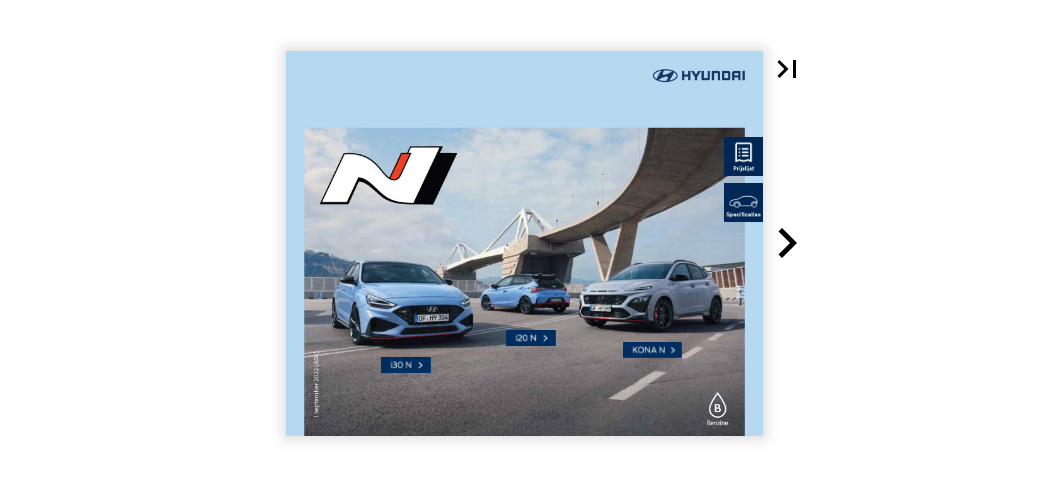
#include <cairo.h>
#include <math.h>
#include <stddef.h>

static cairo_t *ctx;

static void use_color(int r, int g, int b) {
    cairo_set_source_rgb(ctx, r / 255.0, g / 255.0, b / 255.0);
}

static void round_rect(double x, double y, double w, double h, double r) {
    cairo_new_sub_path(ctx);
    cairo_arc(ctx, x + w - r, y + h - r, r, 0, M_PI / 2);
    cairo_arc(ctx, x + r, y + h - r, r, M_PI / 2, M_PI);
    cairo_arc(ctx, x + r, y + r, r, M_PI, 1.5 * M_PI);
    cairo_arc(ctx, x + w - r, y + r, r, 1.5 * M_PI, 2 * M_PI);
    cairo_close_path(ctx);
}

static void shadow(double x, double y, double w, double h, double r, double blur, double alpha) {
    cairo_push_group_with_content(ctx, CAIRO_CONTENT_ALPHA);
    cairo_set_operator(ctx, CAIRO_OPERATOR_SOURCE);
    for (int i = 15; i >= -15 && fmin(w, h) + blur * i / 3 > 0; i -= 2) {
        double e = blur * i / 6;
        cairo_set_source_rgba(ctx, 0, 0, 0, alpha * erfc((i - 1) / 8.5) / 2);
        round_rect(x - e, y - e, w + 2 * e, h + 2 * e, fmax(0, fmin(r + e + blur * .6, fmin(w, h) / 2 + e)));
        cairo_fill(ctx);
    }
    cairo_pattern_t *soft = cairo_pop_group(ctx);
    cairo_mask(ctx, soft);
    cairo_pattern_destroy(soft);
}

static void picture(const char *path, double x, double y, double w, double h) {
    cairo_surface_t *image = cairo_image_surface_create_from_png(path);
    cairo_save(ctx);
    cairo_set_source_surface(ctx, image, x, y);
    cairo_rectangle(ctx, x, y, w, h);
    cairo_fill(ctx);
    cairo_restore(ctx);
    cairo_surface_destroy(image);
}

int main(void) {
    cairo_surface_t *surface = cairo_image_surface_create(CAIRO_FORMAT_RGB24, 1049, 486);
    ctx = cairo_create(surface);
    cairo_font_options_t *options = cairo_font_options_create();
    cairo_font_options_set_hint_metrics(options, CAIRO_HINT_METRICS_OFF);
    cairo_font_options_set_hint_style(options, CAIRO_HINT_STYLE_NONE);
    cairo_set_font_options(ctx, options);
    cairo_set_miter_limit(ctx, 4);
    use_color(255, 255, 255);
    cairo_paint(ctx);
    use_color(0, 0, 0);
    shadow(286, 51, 477, 385, 0, 8, 0.2);
    picture("img1.png", 286, 51, 477, 385);
    picture("img2.png", 724, 137, 39, 39);
    picture("img3.png", 724, 183, 39, 39);
    picture("img4.png", 506, 330, 50, 16);
    picture("img5.png", 623, 342, 59, 16);
    picture("img6.png", 381, 357, 50, 16);
    picture("img7.png", 777, 60, 19, 18);
    use_color(0, 0, 0);
    cairo_new_path(ctx);
    cairo_move_to(ctx, 782, 228);
    cairo_line_to(ctx, 778.5, 231.5);
    cairo_line_to(ctx, 790, 243);
    cairo_line_to(ctx, 778.5, 254.5);
    cairo_line_to(ctx, 782, 258);
    cairo_line_to(ctx, 797, 243);
    cairo_close_path(ctx);
    cairo_fill(ctx);
    cairo_surface_write_to_png(surface, "result.png");
    cairo_font_options_destroy(options);
    cairo_destroy(ctx);
    cairo_surface_destroy(surface);
    return 0;
}
